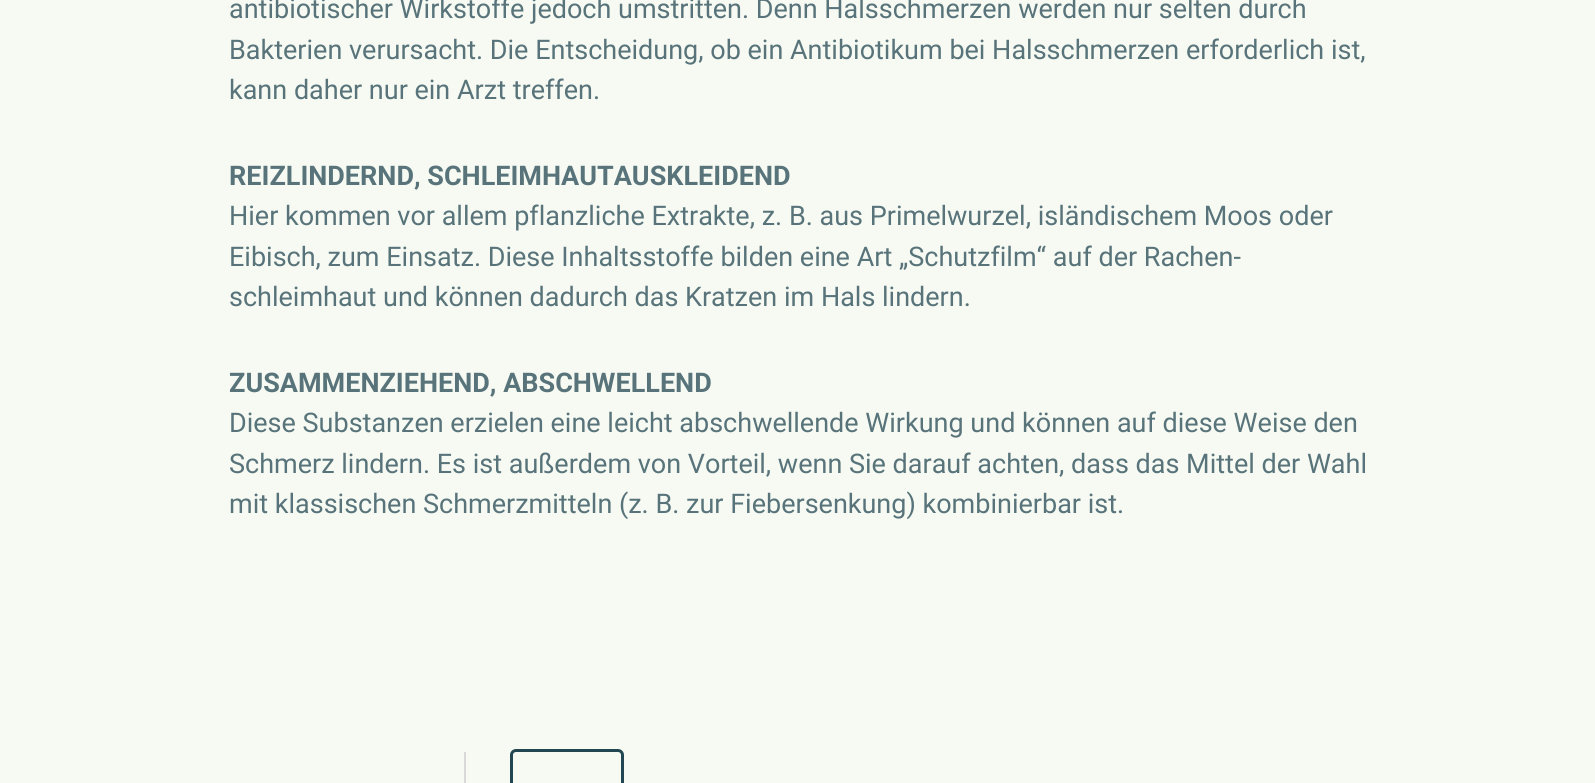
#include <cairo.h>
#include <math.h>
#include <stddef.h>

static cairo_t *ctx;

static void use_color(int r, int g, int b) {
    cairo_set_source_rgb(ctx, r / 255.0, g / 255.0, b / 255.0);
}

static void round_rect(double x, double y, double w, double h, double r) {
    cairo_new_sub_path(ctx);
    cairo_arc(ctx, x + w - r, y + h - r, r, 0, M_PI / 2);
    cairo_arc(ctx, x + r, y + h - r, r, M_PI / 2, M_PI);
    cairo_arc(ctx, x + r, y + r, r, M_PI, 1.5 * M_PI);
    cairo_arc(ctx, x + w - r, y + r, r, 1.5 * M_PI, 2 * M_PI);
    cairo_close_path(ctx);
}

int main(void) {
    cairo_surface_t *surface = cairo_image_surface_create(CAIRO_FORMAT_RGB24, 1595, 783);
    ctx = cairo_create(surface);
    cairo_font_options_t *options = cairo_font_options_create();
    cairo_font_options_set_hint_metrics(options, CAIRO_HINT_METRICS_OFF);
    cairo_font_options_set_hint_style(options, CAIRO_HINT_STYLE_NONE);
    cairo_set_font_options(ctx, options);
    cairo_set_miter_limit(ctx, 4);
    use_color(247, 250, 243);
    cairo_paint(ctx);
    cairo_select_font_face(ctx, "Roboto", CAIRO_FONT_SLANT_NORMAL, CAIRO_FONT_WEIGHT_NORMAL);
    cairo_set_font_size(ctx, 27);
    use_color(88, 116, 122);
    cairo_move_to(ctx, 229, 18);
    cairo_show_text(ctx, "antibiotischer Wirkstoffe jedoch umstritten. Denn Halsschmerzen werden nur selten durch");
    cairo_move_to(ctx, 229, 59);
    cairo_show_text(ctx, "Bakterien verursacht. Die Entscheidung, ob ein Antibiotikum bei Halsschmerzen erforderlich ist,");
    cairo_move_to(ctx, 229, 99);
    cairo_show_text(ctx, "kann daher nur ein Arzt treffen.");
    cairo_select_font_face(ctx, "Roboto", CAIRO_FONT_SLANT_NORMAL, CAIRO_FONT_WEIGHT_BOLD);
    cairo_move_to(ctx, 229, 185);
    cairo_show_text(ctx, "REIZLINDERND, SCHLEIMHAUTAUSKLEIDEND");
    cairo_select_font_face(ctx, "Roboto", CAIRO_FONT_SLANT_NORMAL, CAIRO_FONT_WEIGHT_NORMAL);
    cairo_move_to(ctx, 229, 225);
    cairo_show_text(ctx, "Hier kommen vor allem pflanzliche Extrakte, z. B. aus Primelwurzel, isländischem Moos oder");
    cairo_move_to(ctx, 229, 266);
    cairo_show_text(ctx, "Eibisch, zum Einsatz. Diese Inhaltsstoffe bilden eine Art „Schutzfilm“ auf der Rachen-");
    cairo_move_to(ctx, 229, 306);
    cairo_show_text(ctx, "schleimhaut und können dadurch das Kratzen im Hals lindern.");
    cairo_select_font_face(ctx, "Roboto", CAIRO_FONT_SLANT_NORMAL, CAIRO_FONT_WEIGHT_BOLD);
    cairo_move_to(ctx, 229, 392);
    cairo_show_text(ctx, "ZUSAMMENZIEHEND, ABSCHWELLEND");
    cairo_select_font_face(ctx, "Roboto", CAIRO_FONT_SLANT_NORMAL, CAIRO_FONT_WEIGHT_NORMAL);
    cairo_move_to(ctx, 229, 432);
    cairo_show_text(ctx, "Diese Substanzen erzielen eine leicht abschwellende Wirkung und können auf diese Weise den");
    cairo_move_to(ctx, 229, 473);
    cairo_show_text(ctx, "Schmerz lindern. Es ist außerdem von Vorteil, wenn Sie darauf achten, dass das Mittel der Wahl");
    cairo_move_to(ctx, 229, 513);
    cairo_show_text(ctx, "mit klassischen Schmerzmitteln (z. B. zur Fiebersenkung) kombinierbar ist.");
    use_color(217, 217, 217);
    cairo_rectangle(ctx, 464, 752, 2, 31);
    cairo_fill(ctx);
    round_rect(511.5, 750.5, 111, 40, 4.5);
    use_color(35, 71, 82);
    cairo_set_line_width(ctx, 3);
    cairo_stroke(ctx);
    cairo_surface_write_to_png(surface, "result.png");
    cairo_font_options_destroy(options);
    cairo_destroy(ctx);
    cairo_surface_destroy(surface);
    return 0;
}
